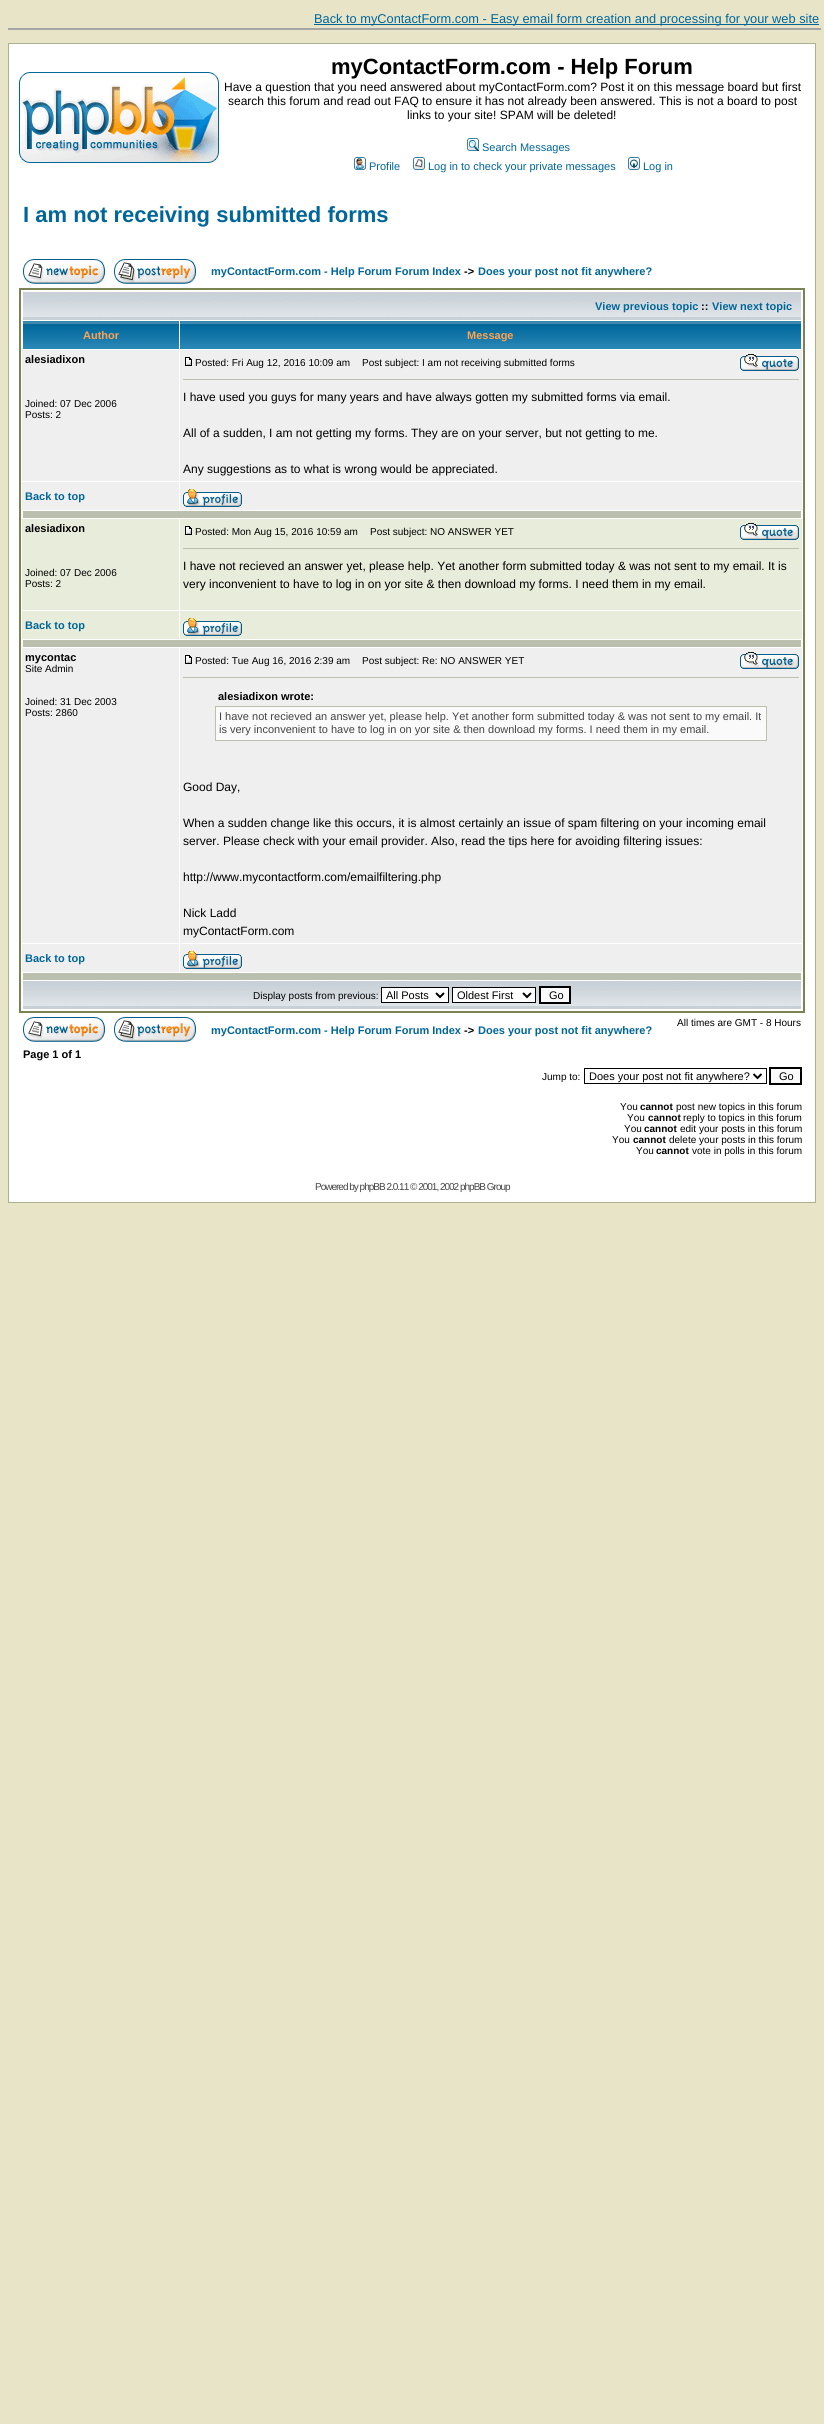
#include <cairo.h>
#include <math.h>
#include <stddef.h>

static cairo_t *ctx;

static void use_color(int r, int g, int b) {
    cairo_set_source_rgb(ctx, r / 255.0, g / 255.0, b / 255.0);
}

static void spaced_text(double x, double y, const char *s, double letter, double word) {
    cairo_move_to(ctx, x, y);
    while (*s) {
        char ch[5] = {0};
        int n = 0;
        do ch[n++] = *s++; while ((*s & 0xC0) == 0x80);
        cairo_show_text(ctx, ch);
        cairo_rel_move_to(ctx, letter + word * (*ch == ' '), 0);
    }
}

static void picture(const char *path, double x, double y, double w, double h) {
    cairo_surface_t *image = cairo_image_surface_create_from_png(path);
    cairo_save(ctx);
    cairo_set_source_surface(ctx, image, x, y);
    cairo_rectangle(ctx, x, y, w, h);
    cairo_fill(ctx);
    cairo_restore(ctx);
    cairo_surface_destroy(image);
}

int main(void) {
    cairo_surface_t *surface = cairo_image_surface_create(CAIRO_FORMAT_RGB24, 824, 2424);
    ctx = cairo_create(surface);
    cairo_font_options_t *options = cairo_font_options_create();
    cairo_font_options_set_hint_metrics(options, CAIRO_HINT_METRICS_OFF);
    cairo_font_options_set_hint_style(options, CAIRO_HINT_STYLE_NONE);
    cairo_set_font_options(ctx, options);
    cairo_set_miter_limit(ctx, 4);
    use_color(231, 228, 200);
    cairo_paint(ctx);
    use_color(165, 165, 165);
    cairo_rectangle(ctx, 8, 28, 813, 2);
    cairo_fill(ctx);
    use_color(0, 102, 153);
    cairo_rectangle(ctx, 314, 24, 505, 1);
    cairo_fill(ctx);
    cairo_select_font_face(ctx, "Liberation Sans", CAIRO_FONT_SLANT_NORMAL, CAIRO_FONT_WEIGHT_NORMAL);
    cairo_set_font_size(ctx, 12.8);
    cairo_move_to(ctx, 314, 23);
    cairo_show_text(ctx, "Back to myContactForm.com - Easy email form creation and processing for your web site");
    use_color(255, 255, 255);
    cairo_rectangle(ctx, 8.5, 43.5, 807, 1159);
    cairo_fill_preserve(ctx);
    use_color(170, 177, 145);
    cairo_set_line_width(ctx, 1);
    cairo_stroke(ctx);
    picture("img1.png", 19, 72, 200, 91);
    cairo_select_font_face(ctx, "Liberation Sans", CAIRO_FONT_SLANT_NORMAL, CAIRO_FONT_WEIGHT_BOLD);
    cairo_set_font_size(ctx, 22);
    use_color(0, 0, 0);
    cairo_move_to(ctx, 331, 74);
    cairo_show_text(ctx, "myContactForm.com - Help Forum");
    cairo_select_font_face(ctx, "Liberation Sans", CAIRO_FONT_SLANT_NORMAL, CAIRO_FONT_WEIGHT_NORMAL);
    cairo_set_font_size(ctx, 12);
    cairo_move_to(ctx, 224, 91);
    cairo_show_text(ctx, "Have a question that you need answered about myContactForm.com? Post it on this message board but first");
    cairo_move_to(ctx, 228, 105);
    cairo_show_text(ctx, "search this forum and read out FAQ to ensure it has not already been answered. This is not a board to post");
    cairo_move_to(ctx, 407, 119);
    cairo_show_text(ctx, "links to your site! SPAM will be deleted!");
    picture("img2.png", 467, 138, 12, 13);
    cairo_set_font_size(ctx, 11);
    use_color(0, 102, 153);
    cairo_move_to(ctx, 482, 151);
    cairo_show_text(ctx, "Search Messages");
    picture("img3.png", 354, 157, 12, 13);
    cairo_move_to(ctx, 369, 170);
    cairo_show_text(ctx, "Profile");
    picture("img4.png", 413, 157, 12, 13);
    cairo_move_to(ctx, 428, 170);
    cairo_show_text(ctx, "Log in to check your private messages");
    picture("img5.png", 628, 157, 12, 13);
    cairo_move_to(ctx, 643, 170);
    cairo_show_text(ctx, "Log in");
    cairo_select_font_face(ctx, "Liberation Sans", CAIRO_FONT_SLANT_NORMAL, CAIRO_FONT_WEIGHT_BOLD);
    cairo_set_font_size(ctx, 22);
    cairo_move_to(ctx, 23, 222);
    cairo_show_text(ctx, "I am not receiving submitted forms");
    picture("img6.png", 23, 259, 82, 25);
    picture("img7.png", 114, 259, 82, 25);
    cairo_set_font_size(ctx, 11);
    cairo_move_to(ctx, 211, 275);
    cairo_show_text(ctx, "myContactForm.com - Help Forum Forum Index");
    use_color(0, 0, 0);
    cairo_move_to(ctx, 464, 275);
    cairo_show_text(ctx, "->");
    use_color(0, 102, 153);
    cairo_move_to(ctx, 478, 275);
    cairo_show_text(ctx, "Does your post not fit anywhere?");
    cairo_rectangle(ctx, 20, 289, 784, 723);
    use_color(121, 132, 82);
    cairo_set_line_width(ctx, 2);
    cairo_stroke(ctx);
    picture("img8.png", 23, 292, 778, 28);
    use_color(0, 102, 153);
    cairo_move_to(ctx, 595, 310);
    cairo_show_text(ctx, "View previous topic");
    use_color(0, 0, 0);
    cairo_move_to(ctx, 701, 310);
    cairo_show_text(ctx, "::");
    use_color(0, 102, 153);
    cairo_move_to(ctx, 712, 310);
    cairo_show_text(ctx, "View next topic");
    picture("img9.png", 23, 321, 156, 28);
    use_color(255, 163, 79);
    cairo_move_to(ctx, 83, 339);
    cairo_show_text(ctx, "Author");
    picture("img10.png", 180, 321, 621, 28);
    cairo_move_to(ctx, 467, 339);
    cairo_show_text(ctx, "Message");
    use_color(239, 239, 239);
    cairo_rectangle(ctx, 22, 350, 157, 131);
    cairo_fill(ctx);
    use_color(0, 0, 0);
    cairo_move_to(ctx, 25, 363);
    cairo_show_text(ctx, "alesiadixon");
    cairo_select_font_face(ctx, "Liberation Sans", CAIRO_FONT_SLANT_NORMAL, CAIRO_FONT_WEIGHT_NORMAL);
    cairo_set_font_size(ctx, 10);
    cairo_move_to(ctx, 25, 407);
    cairo_show_text(ctx, "Joined: 07 Dec 2006");
    cairo_move_to(ctx, 25, 418);
    cairo_show_text(ctx, "Posts: 2");
    use_color(239, 239, 239);
    cairo_rectangle(ctx, 180, 350, 622, 131);
    cairo_fill(ctx);
    picture("img11.png", 185, 357, 7, 9);
    use_color(0, 0, 0);
    cairo_move_to(ctx, 195, 366);
    cairo_show_text(ctx, "Posted: Fri Aug 12, 2016 10:09 am");
    cairo_move_to(ctx, 362, 366);
    cairo_show_text(ctx, "Post subject: I am not receiving submitted forms");
    picture("img12.png", 740, 354, 59, 17);
    use_color(187, 191, 173);
    cairo_rectangle(ctx, 183, 379, 616, 1);
    cairo_fill(ctx);
    cairo_set_font_size(ctx, 12);
    use_color(0, 0, 0);
    cairo_move_to(ctx, 183, 401);
    cairo_show_text(ctx, "I have used you guys for many years and have always gotten my submitted forms via email.");
    cairo_move_to(ctx, 183, 437);
    cairo_show_text(ctx, "All of a sudden, I am not getting my forms. They are on your server, but not getting to me.");
    cairo_move_to(ctx, 183, 473);
    cairo_show_text(ctx, "Any suggestions as to what is wrong would be appreciated.");
    use_color(239, 239, 239);
    cairo_rectangle(ctx, 22, 482, 157, 28);
    cairo_fill(ctx);
    cairo_select_font_face(ctx, "Liberation Sans", CAIRO_FONT_SLANT_NORMAL, CAIRO_FONT_WEIGHT_BOLD);
    cairo_set_font_size(ctx, 11);
    use_color(0, 102, 153);
    cairo_move_to(ctx, 25, 500);
    cairo_show_text(ctx, "Back to top");
    use_color(239, 239, 239);
    cairo_rectangle(ctx, 180, 482, 622, 28);
    cairo_fill(ctx);
    picture("img13.png", 183, 489, 59, 18);
    use_color(187, 191, 173);
    cairo_rectangle(ctx, 23, 511, 778, 7);
    cairo_fill(ctx);
    use_color(232, 236, 219);
    cairo_rectangle(ctx, 22, 519, 157, 91);
    cairo_fill(ctx);
    use_color(0, 0, 0);
    cairo_move_to(ctx, 25, 532);
    cairo_show_text(ctx, "alesiadixon");
    cairo_select_font_face(ctx, "Liberation Sans", CAIRO_FONT_SLANT_NORMAL, CAIRO_FONT_WEIGHT_NORMAL);
    cairo_set_font_size(ctx, 10);
    cairo_move_to(ctx, 25, 576);
    cairo_show_text(ctx, "Joined: 07 Dec 2006");
    cairo_move_to(ctx, 25, 587);
    cairo_show_text(ctx, "Posts: 2");
    use_color(232, 236, 219);
    cairo_rectangle(ctx, 180, 519, 622, 91);
    cairo_fill(ctx);
    picture("img14.png", 185, 526, 7, 9);
    use_color(0, 0, 0);
    cairo_move_to(ctx, 195, 535);
    cairo_show_text(ctx, "Posted: Mon Aug 15, 2016 10:59 am");
    cairo_move_to(ctx, 370, 535);
    cairo_show_text(ctx, "Post subject: NO ANSWER YET");
    picture("img15.png", 740, 523, 59, 17);
    use_color(187, 191, 173);
    cairo_rectangle(ctx, 183, 548, 616, 1);
    cairo_fill(ctx);
    cairo_set_font_size(ctx, 12);
    use_color(0, 0, 0);
    cairo_move_to(ctx, 183, 570);
    cairo_show_text(ctx, "I have not recieved an answer yet, please help. Yet another form submitted today & was not sent to my email. It is");
    cairo_move_to(ctx, 183, 588);
    cairo_show_text(ctx, "very inconvenient to have to log in on yor site & then download my forms. I need them in my email.");
    use_color(232, 236, 219);
    cairo_rectangle(ctx, 22, 611, 157, 28);
    cairo_fill(ctx);
    cairo_select_font_face(ctx, "Liberation Sans", CAIRO_FONT_SLANT_NORMAL, CAIRO_FONT_WEIGHT_BOLD);
    cairo_set_font_size(ctx, 11);
    use_color(0, 102, 153);
    cairo_move_to(ctx, 25, 629);
    cairo_show_text(ctx, "Back to top");
    use_color(232, 236, 219);
    cairo_rectangle(ctx, 180, 611, 622, 28);
    cairo_fill(ctx);
    picture("img16.png", 183, 618, 59, 18);
    use_color(187, 191, 173);
    cairo_rectangle(ctx, 23, 640, 778, 7);
    cairo_fill(ctx);
    use_color(239, 239, 239);
    cairo_rectangle(ctx, 22, 648, 157, 295);
    cairo_fill(ctx);
    use_color(0, 0, 0);
    cairo_move_to(ctx, 25, 661);
    cairo_show_text(ctx, "mycontac");
    cairo_select_font_face(ctx, "Liberation Sans", CAIRO_FONT_SLANT_NORMAL, CAIRO_FONT_WEIGHT_NORMAL);
    cairo_set_font_size(ctx, 10);
    cairo_move_to(ctx, 25, 672);
    cairo_show_text(ctx, "Site Admin");
    cairo_move_to(ctx, 25, 705);
    cairo_show_text(ctx, "Joined: 31 Dec 2003");
    cairo_move_to(ctx, 25, 716);
    cairo_show_text(ctx, "Posts: 2860");
    use_color(239, 239, 239);
    cairo_rectangle(ctx, 180, 648, 622, 295);
    cairo_fill(ctx);
    picture("img11.png", 185, 655, 7, 9);
    use_color(0, 0, 0);
    cairo_move_to(ctx, 195, 664);
    cairo_show_text(ctx, "Posted: Tue Aug 16, 2016 2:39 am");
    cairo_move_to(ctx, 362, 664);
    cairo_show_text(ctx, "Post subject: Re: NO ANSWER YET");
    picture("img12.png", 740, 652, 59, 17);
    use_color(187, 191, 173);
    cairo_rectangle(ctx, 183, 677, 616, 1);
    cairo_fill(ctx);
    cairo_select_font_face(ctx, "Liberation Sans", CAIRO_FONT_SLANT_NORMAL, CAIRO_FONT_WEIGHT_BOLD);
    cairo_set_font_size(ctx, 11);
    use_color(0, 0, 0);
    cairo_move_to(ctx, 218, 700);
    cairo_show_text(ctx, "alesiadixon wrote:");
    use_color(250, 250, 250);
    cairo_rectangle(ctx, 215.5, 706.5, 551, 34);
    cairo_fill_preserve(ctx);
    use_color(187, 191, 173);
    cairo_set_line_width(ctx, 1);
    cairo_stroke(ctx);
    cairo_select_font_face(ctx, "Liberation Sans", CAIRO_FONT_SLANT_NORMAL, CAIRO_FONT_WEIGHT_NORMAL);
    use_color(68, 68, 68);
    cairo_move_to(ctx, 219, 720);
    cairo_show_text(ctx, "I have not recieved an answer yet, please help. Yet another form submitted today & was not sent to my email. It");
    cairo_move_to(ctx, 219, 733);
    cairo_show_text(ctx, "is very inconvenient to have to log in on yor site & then download my forms. I need them in my email.");
    cairo_set_font_size(ctx, 12);
    use_color(0, 0, 0);
    cairo_move_to(ctx, 183, 791);
    cairo_show_text(ctx, "Good Day,");
    cairo_move_to(ctx, 183, 827);
    cairo_show_text(ctx, "When a sudden change like this occurs, it is almost certainly an issue of spam filtering on your incoming email");
    cairo_move_to(ctx, 183, 845);
    cairo_show_text(ctx, "server. Please check with your email provider. Also, read the tips here for avoiding filtering issues:");
    cairo_move_to(ctx, 183, 881);
    cairo_show_text(ctx, "http://www.mycontactform.com/emailfiltering.php");
    cairo_move_to(ctx, 183, 917);
    cairo_show_text(ctx, "Nick Ladd");
    cairo_move_to(ctx, 183, 935);
    cairo_show_text(ctx, "myContactForm.com");
    use_color(239, 239, 239);
    cairo_rectangle(ctx, 22, 944, 157, 28);
    cairo_fill(ctx);
    cairo_select_font_face(ctx, "Liberation Sans", CAIRO_FONT_SLANT_NORMAL, CAIRO_FONT_WEIGHT_BOLD);
    cairo_set_font_size(ctx, 11);
    use_color(0, 102, 153);
    cairo_move_to(ctx, 25, 962);
    cairo_show_text(ctx, "Back to top");
    use_color(239, 239, 239);
    cairo_rectangle(ctx, 180, 944, 622, 28);
    cairo_fill(ctx);
    picture("img13.png", 183, 951, 59, 18);
    use_color(187, 191, 173);
    cairo_rectangle(ctx, 23, 973, 778, 7);
    cairo_fill(ctx);
    picture("img8.png", 23, 981, 778, 28);
    cairo_select_font_face(ctx, "Liberation Sans", CAIRO_FONT_SLANT_NORMAL, CAIRO_FONT_WEIGHT_NORMAL);
    cairo_set_font_size(ctx, 10);
    use_color(0, 0, 0);
    cairo_move_to(ctx, 253, 999);
    cairo_show_text(ctx, "Display posts from previous:");
    use_color(255, 255, 255);
    cairo_rectangle(ctx, 381.5, 987.5, 67, 15);
    cairo_fill_preserve(ctx);
    use_color(0, 0, 0);
    cairo_stroke(ctx);
    cairo_new_path(ctx);
    cairo_move_to(ctx, 436, 993);
    cairo_line_to(ctx, 440, 997);
    cairo_line_to(ctx, 444, 993);
    cairo_set_line_width(ctx, 2);
    cairo_stroke(ctx);
    cairo_set_font_size(ctx, 11);
    cairo_move_to(ctx, 386, 999);
    cairo_show_text(ctx, "All Posts");
    use_color(255, 255, 255);
    cairo_rectangle(ctx, 452.5, 987.5, 83, 15);
    cairo_fill_preserve(ctx);
    use_color(0, 0, 0);
    cairo_set_line_width(ctx, 1);
    cairo_stroke(ctx);
    cairo_new_path(ctx);
    cairo_move_to(ctx, 523, 993);
    cairo_line_to(ctx, 527, 997);
    cairo_line_to(ctx, 531, 993);
    cairo_set_line_width(ctx, 2);
    cairo_stroke(ctx);
    cairo_move_to(ctx, 457, 999);
    cairo_show_text(ctx, "Oldest First");
    use_color(250, 250, 250);
    cairo_rectangle(ctx, 540, 987, 30, 16);
    cairo_fill_preserve(ctx);
    use_color(0, 0, 0);
    cairo_stroke(ctx);
    cairo_move_to(ctx, 549, 999);
    cairo_show_text(ctx, "Go");
    picture("img6.png", 23, 1017, 82, 25);
    picture("img7.png", 114, 1017, 82, 25);
    cairo_set_font_size(ctx, 10);
    cairo_move_to(ctx, 677, 1026);
    cairo_show_text(ctx, "All times are GMT - 8 Hours");
    cairo_select_font_face(ctx, "Liberation Sans", CAIRO_FONT_SLANT_NORMAL, CAIRO_FONT_WEIGHT_BOLD);
    cairo_set_font_size(ctx, 11);
    use_color(0, 102, 153);
    cairo_move_to(ctx, 211, 1034);
    cairo_show_text(ctx, "myContactForm.com - Help Forum Forum Index");
    use_color(0, 0, 0);
    cairo_move_to(ctx, 464, 1034);
    cairo_show_text(ctx, "->");
    use_color(0, 102, 153);
    cairo_move_to(ctx, 478, 1034);
    cairo_show_text(ctx, "Does your post not fit anywhere?");
    use_color(0, 0, 0);
    cairo_move_to(ctx, 23, 1058);
    cairo_show_text(ctx, "Page 1 of 1");
    cairo_select_font_face(ctx, "Liberation Sans", CAIRO_FONT_SLANT_NORMAL, CAIRO_FONT_WEIGHT_NORMAL);
    cairo_set_font_size(ctx, 10);
    cairo_move_to(ctx, 542, 1080);
    cairo_show_text(ctx, "Jump to:");
    cairo_rectangle(ctx, 584.5, 1068.5, 182, 15);
    cairo_set_line_width(ctx, 1);
    cairo_stroke(ctx);
    cairo_new_path(ctx);
    cairo_move_to(ctx, 753.5, 1074);
    cairo_line_to(ctx, 757.5, 1078);
    cairo_line_to(ctx, 761.5, 1074);
    cairo_set_line_width(ctx, 2);
    cairo_stroke(ctx);
    cairo_set_font_size(ctx, 11);
    cairo_move_to(ctx, 589, 1080);
    cairo_show_text(ctx, "Does your post not fit anywhere?");
    use_color(250, 250, 250);
    cairo_rectangle(ctx, 770, 1068, 31, 16);
    cairo_fill_preserve(ctx);
    use_color(0, 0, 0);
    cairo_stroke(ctx);
    cairo_move_to(ctx, 779, 1080);
    cairo_show_text(ctx, "Go");
    cairo_set_font_size(ctx, 10);
    cairo_move_to(ctx, 620, 1110);
    cairo_show_text(ctx, "You");
    cairo_select_font_face(ctx, "Liberation Sans", CAIRO_FONT_SLANT_NORMAL, CAIRO_FONT_WEIGHT_BOLD);
    cairo_move_to(ctx, 640, 1110);
    cairo_show_text(ctx, "cannot");
    cairo_select_font_face(ctx, "Liberation Sans", CAIRO_FONT_SLANT_NORMAL, CAIRO_FONT_WEIGHT_NORMAL);
    cairo_move_to(ctx, 676, 1110);
    cairo_show_text(ctx, "post new topics in this forum");
    cairo_move_to(ctx, 627, 1121);
    cairo_show_text(ctx, "You");
    cairo_select_font_face(ctx, "Liberation Sans", CAIRO_FONT_SLANT_NORMAL, CAIRO_FONT_WEIGHT_BOLD);
    cairo_move_to(ctx, 648, 1121);
    cairo_show_text(ctx, "cannot");
    cairo_select_font_face(ctx, "Liberation Sans", CAIRO_FONT_SLANT_NORMAL, CAIRO_FONT_WEIGHT_NORMAL);
    cairo_move_to(ctx, 683, 1121);
    cairo_show_text(ctx, "reply to topics in this forum");
    cairo_move_to(ctx, 624, 1132);
    cairo_show_text(ctx, "You");
    cairo_select_font_face(ctx, "Liberation Sans", CAIRO_FONT_SLANT_NORMAL, CAIRO_FONT_WEIGHT_BOLD);
    cairo_move_to(ctx, 644, 1132);
    cairo_show_text(ctx, "cannot");
    cairo_select_font_face(ctx, "Liberation Sans", CAIRO_FONT_SLANT_NORMAL, CAIRO_FONT_WEIGHT_NORMAL);
    cairo_move_to(ctx, 680, 1132);
    cairo_show_text(ctx, "edit your posts in this forum");
    cairo_move_to(ctx, 612, 1143);
    cairo_show_text(ctx, "You");
    cairo_select_font_face(ctx, "Liberation Sans", CAIRO_FONT_SLANT_NORMAL, CAIRO_FONT_WEIGHT_BOLD);
    cairo_move_to(ctx, 633, 1143);
    cairo_show_text(ctx, "cannot");
    cairo_select_font_face(ctx, "Liberation Sans", CAIRO_FONT_SLANT_NORMAL, CAIRO_FONT_WEIGHT_NORMAL);
    cairo_move_to(ctx, 669, 1143);
    cairo_show_text(ctx, "delete your posts in this forum");
    cairo_move_to(ctx, 636, 1154);
    cairo_show_text(ctx, "You");
    cairo_select_font_face(ctx, "Liberation Sans", CAIRO_FONT_SLANT_NORMAL, CAIRO_FONT_WEIGHT_BOLD);
    cairo_move_to(ctx, 656, 1154);
    cairo_show_text(ctx, "cannot");
    cairo_select_font_face(ctx, "Liberation Sans", CAIRO_FONT_SLANT_NORMAL, CAIRO_FONT_WEIGHT_NORMAL);
    cairo_move_to(ctx, 692, 1154);
    cairo_show_text(ctx, "vote in polls in this forum");
    use_color(68, 68, 68);
    spaced_text(315, 1190, "Powered by phpBB 2.0.11 © 2001, 2002 phpBB Group", -1, 0);
    cairo_surface_write_to_png(surface, "result.png");
    cairo_font_options_destroy(options);
    cairo_destroy(ctx);
    cairo_surface_destroy(surface);
    return 0;
}
